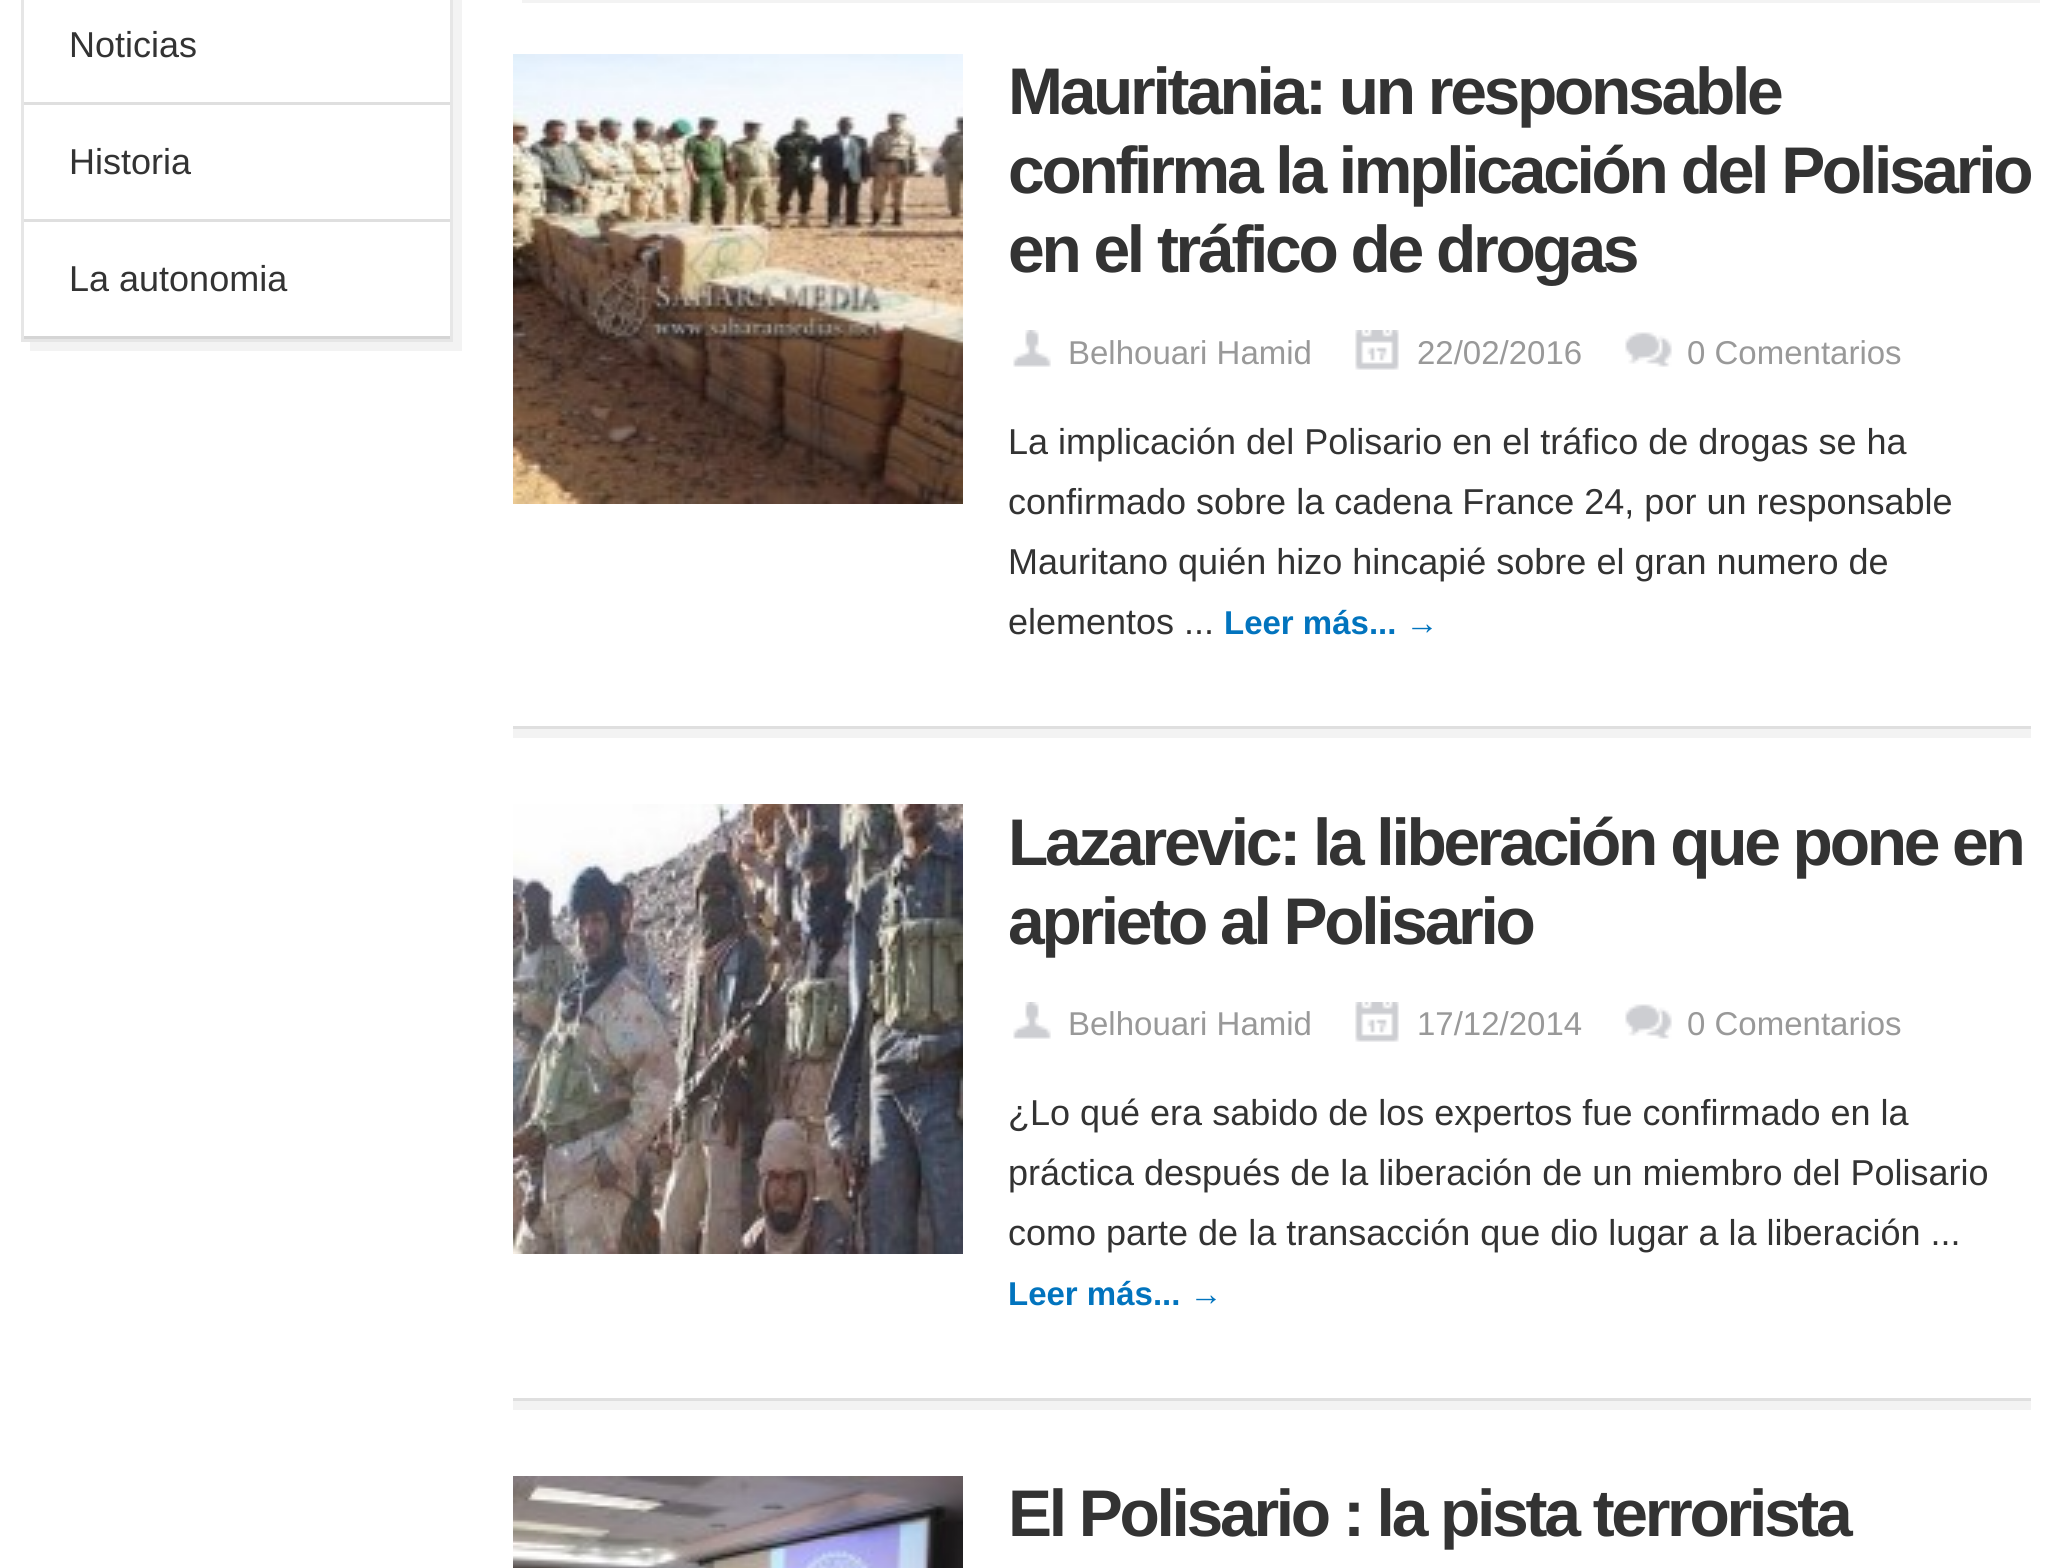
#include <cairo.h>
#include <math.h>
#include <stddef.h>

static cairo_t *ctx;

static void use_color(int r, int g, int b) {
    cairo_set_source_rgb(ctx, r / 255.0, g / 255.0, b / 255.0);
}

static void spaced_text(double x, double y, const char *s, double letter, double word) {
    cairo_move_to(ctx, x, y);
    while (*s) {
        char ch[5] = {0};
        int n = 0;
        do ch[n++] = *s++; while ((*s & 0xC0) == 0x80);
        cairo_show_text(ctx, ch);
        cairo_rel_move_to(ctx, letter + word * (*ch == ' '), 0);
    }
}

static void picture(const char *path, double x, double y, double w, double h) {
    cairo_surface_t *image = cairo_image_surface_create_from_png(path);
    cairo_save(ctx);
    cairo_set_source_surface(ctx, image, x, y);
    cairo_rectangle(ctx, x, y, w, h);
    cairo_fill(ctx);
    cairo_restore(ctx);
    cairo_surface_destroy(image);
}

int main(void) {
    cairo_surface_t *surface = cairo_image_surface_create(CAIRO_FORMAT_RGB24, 2067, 1568);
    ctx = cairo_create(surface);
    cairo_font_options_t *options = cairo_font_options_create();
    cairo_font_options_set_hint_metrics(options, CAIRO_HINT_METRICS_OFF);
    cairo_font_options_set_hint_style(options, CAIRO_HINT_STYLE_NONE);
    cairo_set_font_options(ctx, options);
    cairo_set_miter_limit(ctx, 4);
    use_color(255, 255, 255);
    cairo_paint(ctx);
    use_color(243, 243, 243);
    cairo_new_path(ctx);
    cairo_move_to(ctx, 30, 342);
    cairo_line_to(ctx, 30, 351);
    cairo_line_to(ctx, 462, 351);
    cairo_line_to(ctx, 462, -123);
    cairo_line_to(ctx, 453, -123);
    cairo_line_to(ctx, 453, 342);
    cairo_close_path(ctx);
    cairo_fill(ctx);
    use_color(230, 230, 230);
    cairo_rectangle(ctx, 450, 0, 3, 342);
    cairo_fill(ctx);
    cairo_rectangle(ctx, 21, 339, 432, 3);
    cairo_fill(ctx);
    cairo_rectangle(ctx, 21, 0, 3, 342);
    cairo_fill(ctx);
    use_color(213, 213, 213);
    cairo_rectangle(ctx, 24, 336, 426, 3);
    cairo_fill(ctx);
    cairo_select_font_face(ctx, "Liberation Sans", CAIRO_FONT_SLANT_NORMAL, CAIRO_FONT_WEIGHT_NORMAL);
    cairo_set_font_size(ctx, 36);
    use_color(51, 51, 51);
    cairo_move_to(ctx, 69, 57);
    cairo_show_text(ctx, "Noticias");
    use_color(223, 223, 223);
    cairo_rectangle(ctx, 24, 102, 426, 3);
    cairo_fill(ctx);
    use_color(51, 51, 51);
    cairo_move_to(ctx, 69, 174);
    cairo_show_text(ctx, "Historia");
    use_color(223, 223, 223);
    cairo_rectangle(ctx, 24, 219, 426, 3);
    cairo_fill(ctx);
    use_color(51, 51, 51);
    cairo_move_to(ctx, 69, 291);
    cairo_show_text(ctx, "La autonomia");
    use_color(243, 243, 243);
    cairo_new_path(ctx);
    cairo_move_to(ctx, 522, -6);
    cairo_line_to(ctx, 522, 3);
    cairo_line_to(ctx, 2040, 3);
    cairo_line_to(ctx, 2040, -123);
    cairo_line_to(ctx, 2031, -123);
    cairo_line_to(ctx, 2031, -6);
    cairo_close_path(ctx);
    cairo_fill(ctx);
    cairo_rectangle(ctx, 513, 729, 1518, 9);
    cairo_fill(ctx);
    use_color(223, 223, 223);
    cairo_rectangle(ctx, 513, 726, 1518, 3);
    cairo_fill(ctx);
    picture("img1.png", 513, 54, 450, 450);
    cairo_select_font_face(ctx, "Liberation Sans", CAIRO_FONT_SLANT_NORMAL, CAIRO_FONT_WEIGHT_BOLD);
    cairo_set_font_size(ctx, 66);
    use_color(51, 51, 51);
    spaced_text(1008, 114, "Mauritania: un responsable", -3.3, 0);
    spaced_text(1008, 193, "confirma la implicación del Polisario", -3.3, 0);
    spaced_text(1008, 272, "en el tráfico de drogas", -3.3, 0);
    picture("img2.png", 1013, 330, 38, 37);
    cairo_select_font_face(ctx, "Liberation Sans", CAIRO_FONT_SLANT_NORMAL, CAIRO_FONT_WEIGHT_NORMAL);
    cairo_set_font_size(ctx, 33);
    use_color(153, 153, 153);
    cairo_move_to(ctx, 1068, 364);
    cairo_show_text(ctx, "Belhouari Hamid");
    picture("img3.png", 1355, 330, 44, 40);
    cairo_move_to(ctx, 1417, 364);
    cairo_show_text(ctx, "22/02/2016");
    picture("img4.png", 1625, 332, 47, 35);
    cairo_move_to(ctx, 1687, 364);
    cairo_show_text(ctx, "0 Comentarios");
    cairo_set_font_size(ctx, 36);
    use_color(51, 51, 51);
    cairo_move_to(ctx, 1008, 454);
    cairo_show_text(ctx, "La implicación del Polisario en el tráfico de drogas se ha");
    cairo_move_to(ctx, 1008, 514);
    cairo_show_text(ctx, "confirmado sobre la cadena France 24, por un responsable");
    cairo_move_to(ctx, 1008, 574);
    cairo_show_text(ctx, "Mauritano quién hizo hincapié sobre el gran numero de");
    cairo_move_to(ctx, 1008, 634);
    cairo_show_text(ctx, "elementos ...");
    cairo_select_font_face(ctx, "Liberation Sans", CAIRO_FONT_SLANT_NORMAL, CAIRO_FONT_WEIGHT_BOLD);
    cairo_set_font_size(ctx, 33);
    use_color(2, 116, 190);
    cairo_move_to(ctx, 1224, 634);
    cairo_show_text(ctx, "Leer más... →");
    use_color(243, 243, 243);
    cairo_rectangle(ctx, 513, 1401, 1518, 9);
    cairo_fill(ctx);
    use_color(223, 223, 223);
    cairo_rectangle(ctx, 513, 1398, 1518, 3);
    cairo_fill(ctx);
    picture("img5.png", 513, 804, 450, 450);
    cairo_set_font_size(ctx, 66);
    use_color(51, 51, 51);
    spaced_text(1008, 865, "Lazarevic: la liberación que pone en", -3.3, 0);
    spaced_text(1008, 944, "aprieto al Polisario", -3.3, 0);
    picture("img2.png", 1013, 1002, 38, 37);
    cairo_select_font_face(ctx, "Liberation Sans", CAIRO_FONT_SLANT_NORMAL, CAIRO_FONT_WEIGHT_NORMAL);
    cairo_set_font_size(ctx, 33);
    use_color(153, 153, 153);
    cairo_move_to(ctx, 1068, 1035);
    cairo_show_text(ctx, "Belhouari Hamid");
    picture("img3.png", 1355, 1002, 44, 40);
    cairo_move_to(ctx, 1417, 1035);
    cairo_show_text(ctx, "17/12/2014");
    picture("img4.png", 1625, 1004, 47, 35);
    cairo_move_to(ctx, 1687, 1035);
    cairo_show_text(ctx, "0 Comentarios");
    cairo_set_font_size(ctx, 36);
    use_color(51, 51, 51);
    cairo_move_to(ctx, 1008, 1125);
    cairo_show_text(ctx, "¿Lo qué era sabido de los expertos fue confirmado en la");
    cairo_move_to(ctx, 1008, 1185);
    cairo_show_text(ctx, "práctica después de la liberación de un miembro del Polisario");
    cairo_move_to(ctx, 1008, 1245);
    cairo_show_text(ctx, "como parte de la transacción que dio lugar a la liberación ...");
    cairo_select_font_face(ctx, "Liberation Sans", CAIRO_FONT_SLANT_NORMAL, CAIRO_FONT_WEIGHT_BOLD);
    cairo_set_font_size(ctx, 33);
    use_color(2, 116, 190);
    cairo_move_to(ctx, 1008, 1305);
    cairo_show_text(ctx, "Leer más... →");
    picture("img6.png", 513, 1476, 450, 92);
    cairo_set_font_size(ctx, 66);
    use_color(51, 51, 51);
    spaced_text(1008, 1536, "El Polisario : la pista terrorista", -3.3, 0);
    cairo_surface_write_to_png(surface, "result.png");
    cairo_font_options_destroy(options);
    cairo_destroy(ctx);
    cairo_surface_destroy(surface);
    return 0;
}
